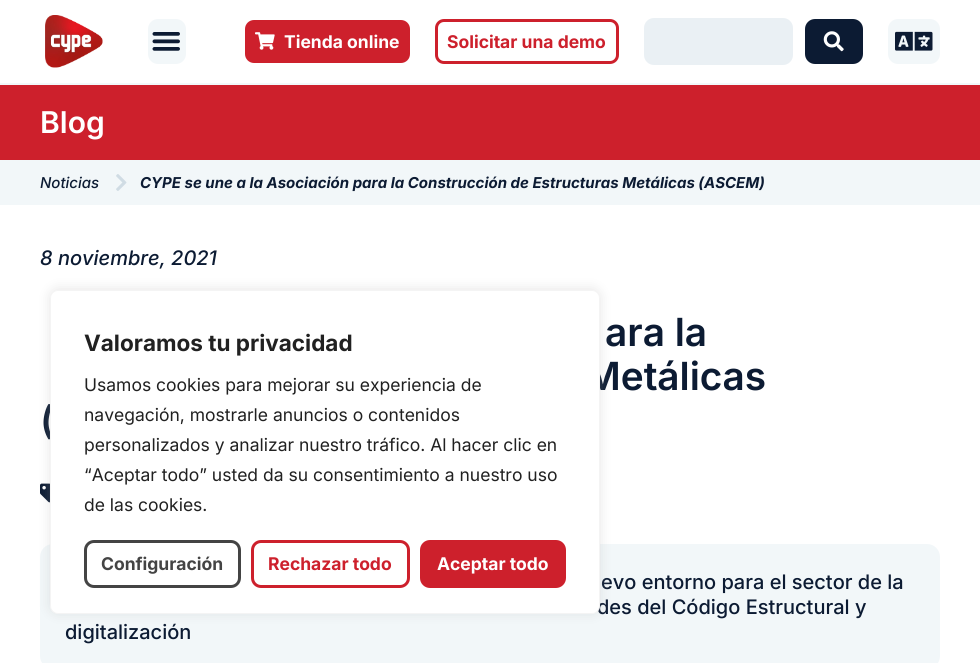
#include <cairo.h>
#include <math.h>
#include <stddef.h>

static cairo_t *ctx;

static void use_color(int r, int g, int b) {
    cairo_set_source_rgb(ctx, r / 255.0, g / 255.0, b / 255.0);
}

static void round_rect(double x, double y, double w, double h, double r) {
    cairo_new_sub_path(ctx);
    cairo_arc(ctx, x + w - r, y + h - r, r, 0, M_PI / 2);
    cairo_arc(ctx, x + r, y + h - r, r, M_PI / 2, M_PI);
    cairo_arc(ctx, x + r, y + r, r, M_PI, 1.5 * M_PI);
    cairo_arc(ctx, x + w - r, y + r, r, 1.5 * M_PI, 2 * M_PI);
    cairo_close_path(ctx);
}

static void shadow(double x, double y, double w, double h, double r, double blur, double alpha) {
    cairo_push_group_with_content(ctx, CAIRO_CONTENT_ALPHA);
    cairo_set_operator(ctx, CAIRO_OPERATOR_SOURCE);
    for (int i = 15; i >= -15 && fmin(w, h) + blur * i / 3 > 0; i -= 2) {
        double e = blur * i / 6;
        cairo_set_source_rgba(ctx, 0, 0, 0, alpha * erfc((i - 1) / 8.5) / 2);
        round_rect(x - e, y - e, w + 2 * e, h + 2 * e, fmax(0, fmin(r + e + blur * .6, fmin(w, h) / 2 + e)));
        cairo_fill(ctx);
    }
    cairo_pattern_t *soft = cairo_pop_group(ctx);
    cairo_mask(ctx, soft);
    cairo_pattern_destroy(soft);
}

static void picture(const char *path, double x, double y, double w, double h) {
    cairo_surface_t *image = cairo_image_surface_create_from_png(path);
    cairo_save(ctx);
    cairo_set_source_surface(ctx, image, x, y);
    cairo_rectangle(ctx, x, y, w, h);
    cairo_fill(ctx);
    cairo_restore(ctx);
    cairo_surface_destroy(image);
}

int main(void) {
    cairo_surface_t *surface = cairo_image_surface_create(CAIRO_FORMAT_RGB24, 980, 663);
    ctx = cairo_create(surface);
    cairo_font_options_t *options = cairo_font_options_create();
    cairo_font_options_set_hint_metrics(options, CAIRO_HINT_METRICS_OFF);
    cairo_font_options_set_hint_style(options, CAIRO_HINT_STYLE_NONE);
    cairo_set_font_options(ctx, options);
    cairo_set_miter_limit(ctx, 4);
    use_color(255, 255, 255);
    cairo_paint(ctx);
    use_color(242, 247, 249);
    cairo_rectangle(ctx, 0, 83, 980, 2);
    cairo_fill(ctx);
    picture("img1.png", 45, 15, 58, 53);
    round_rect(148, 19, 38, 45, 10);
    cairo_fill(ctx);
    picture("img2.png", 152, 32, 28, 19);
    use_color(205, 32, 44);
    round_rect(245, 20, 165, 43, 9);
    cairo_fill(ctx);
    picture("img3.png", 255, 32, 20, 18);
    cairo_select_font_face(ctx, "Inter", CAIRO_FONT_SLANT_NORMAL, CAIRO_FONT_WEIGHT_BOLD);
    cairo_set_font_size(ctx, 17.5);
    use_color(255, 255, 255);
    cairo_move_to(ctx, 284, 48);
    cairo_show_text(ctx, "Tienda online");
    round_rect(436.5, 20.5, 181, 42, 7.5);
    use_color(205, 32, 44);
    cairo_set_line_width(ctx, 3);
    cairo_stroke(ctx);
    cairo_move_to(ctx, 447, 48);
    cairo_show_text(ctx, "Solicitar una demo");
    use_color(234, 240, 244);
    round_rect(644, 18, 149, 47, 10);
    cairo_fill(ctx);
    use_color(12, 27, 51);
    round_rect(805, 19, 58, 45, 10);
    cairo_fill(ctx);
    picture("img4.png", 823, 31, 21, 21);
    use_color(242, 247, 249);
    round_rect(888, 19, 52, 45, 10);
    cairo_fill(ctx);
    picture("img5.png", 895, 31, 38, 20);
    use_color(205, 32, 44);
    cairo_rectangle(ctx, 0, 85, 980, 75);
    cairo_fill(ctx);
    cairo_select_font_face(ctx, "Inter SemiBold", CAIRO_FONT_SLANT_NORMAL, CAIRO_FONT_WEIGHT_NORMAL);
    cairo_set_font_size(ctx, 30);
    use_color(255, 255, 255);
    cairo_move_to(ctx, 40, 133);
    cairo_show_text(ctx, "Blog");
    use_color(242, 247, 249);
    cairo_rectangle(ctx, 0, 160, 980, 45);
    cairo_fill(ctx);
    cairo_select_font_face(ctx, "Inter Medium", CAIRO_FONT_SLANT_ITALIC, CAIRO_FONT_WEIGHT_NORMAL);
    cairo_set_font_size(ctx, 15);
    use_color(12, 27, 51);
    cairo_move_to(ctx, 40, 188);
    cairo_show_text(ctx, "Noticias");
    picture("img6.png", 116, 174, 11, 17);
    cairo_select_font_face(ctx, "Inter", CAIRO_FONT_SLANT_ITALIC, CAIRO_FONT_WEIGHT_BOLD);
    cairo_move_to(ctx, 140, 188);
    cairo_show_text(ctx, "CYPE se une a la Asociación para la Construcción de Estructuras Metálicas (ASCEM)");
    cairo_select_font_face(ctx, "Inter Medium", CAIRO_FONT_SLANT_ITALIC, CAIRO_FONT_WEIGHT_NORMAL);
    cairo_set_font_size(ctx, 20);
    cairo_move_to(ctx, 40, 265);
    cairo_show_text(ctx, "8 noviembre, 2021");
    cairo_select_font_face(ctx, "Inter SemiBold", CAIRO_FONT_SLANT_NORMAL, CAIRO_FONT_WEIGHT_NORMAL);
    cairo_set_font_size(ctx, 38.75);
    cairo_move_to(ctx, 605, 346);
    cairo_show_text(ctx, "ara la");
    cairo_move_to(ctx, 585, 390);
    cairo_show_text(ctx, "Metálicas");
    cairo_move_to(ctx, 40, 434);
    cairo_show_text(ctx, "(");
    picture("img7.png", 40, 483, 10, 20);
    use_color(242, 247, 249);
    round_rect(40, 544, 900, 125, 13);
    cairo_fill(ctx);
    cairo_select_font_face(ctx, "Inter Medium", CAIRO_FONT_SLANT_NORMAL, CAIRO_FONT_WEIGHT_NORMAL);
    cairo_set_font_size(ctx, 20);
    use_color(12, 27, 51);
    cairo_move_to(ctx, 601, 589);
    cairo_show_text(ctx, "evo entorno para el sector de la");
    cairo_move_to(ctx, 597, 614);
    cairo_show_text(ctx, "des del Código Estructural y");
    cairo_move_to(ctx, 65, 639);
    cairo_show_text(ctx, "digitalización");
    use_color(172, 171, 171);
    shadow(50, 289, 550, 324, 8, 6, 0.3);
    use_color(255, 255, 255);
    round_rect(50.5, 290.5, 549, 323, 7.5);
    cairo_fill_preserve(ctx);
    use_color(244, 244, 244);
    cairo_set_line_width(ctx, 1);
    cairo_stroke(ctx);
    cairo_select_font_face(ctx, "Inter", CAIRO_FONT_SLANT_NORMAL, CAIRO_FONT_WEIGHT_BOLD);
    cairo_set_font_size(ctx, 22.5);
    use_color(33, 33, 33);
    cairo_move_to(ctx, 84, 351);
    cairo_show_text(ctx, "Valoramos tu privacidad");
    cairo_select_font_face(ctx, "Inter", CAIRO_FONT_SLANT_NORMAL, CAIRO_FONT_WEIGHT_NORMAL);
    cairo_set_font_size(ctx, 17.5);
    cairo_move_to(ctx, 84, 391);
    cairo_show_text(ctx, "Usamos cookies para mejorar su experiencia de");
    cairo_move_to(ctx, 84, 421);
    cairo_show_text(ctx, "navegación, mostrarle anuncios o contenidos");
    cairo_move_to(ctx, 84, 451);
    cairo_show_text(ctx, "personalizados y analizar nuestro tráfico. Al hacer clic en");
    cairo_move_to(ctx, 84, 481);
    cairo_show_text(ctx, "“Aceptar todo” usted da su consentimiento a nuestro uso");
    cairo_move_to(ctx, 84, 511);
    cairo_show_text(ctx, "de las cookies.");
    round_rect(85.5, 541.5, 154, 45, 8.5);
    use_color(68, 68, 68);
    cairo_set_line_width(ctx, 3);
    cairo_stroke(ctx);
    cairo_select_font_face(ctx, "Inter", CAIRO_FONT_SLANT_NORMAL, CAIRO_FONT_WEIGHT_BOLD);
    cairo_move_to(ctx, 101, 570);
    cairo_show_text(ctx, "Configuración");
    round_rect(252.5, 541.5, 156, 45, 8.5);
    use_color(205, 32, 44);
    cairo_stroke(ctx);
    cairo_move_to(ctx, 268, 570);
    cairo_show_text(ctx, "Rechazar todo");
    round_rect(421.5, 541.5, 143, 45, 8.5);
    cairo_fill_preserve(ctx);
    cairo_stroke(ctx);
    use_color(255, 255, 255);
    cairo_move_to(ctx, 437, 570);
    cairo_show_text(ctx, "Aceptar todo");
    cairo_surface_write_to_png(surface, "result.png");
    cairo_font_options_destroy(options);
    cairo_destroy(ctx);
    cairo_surface_destroy(surface);
    return 0;
}
